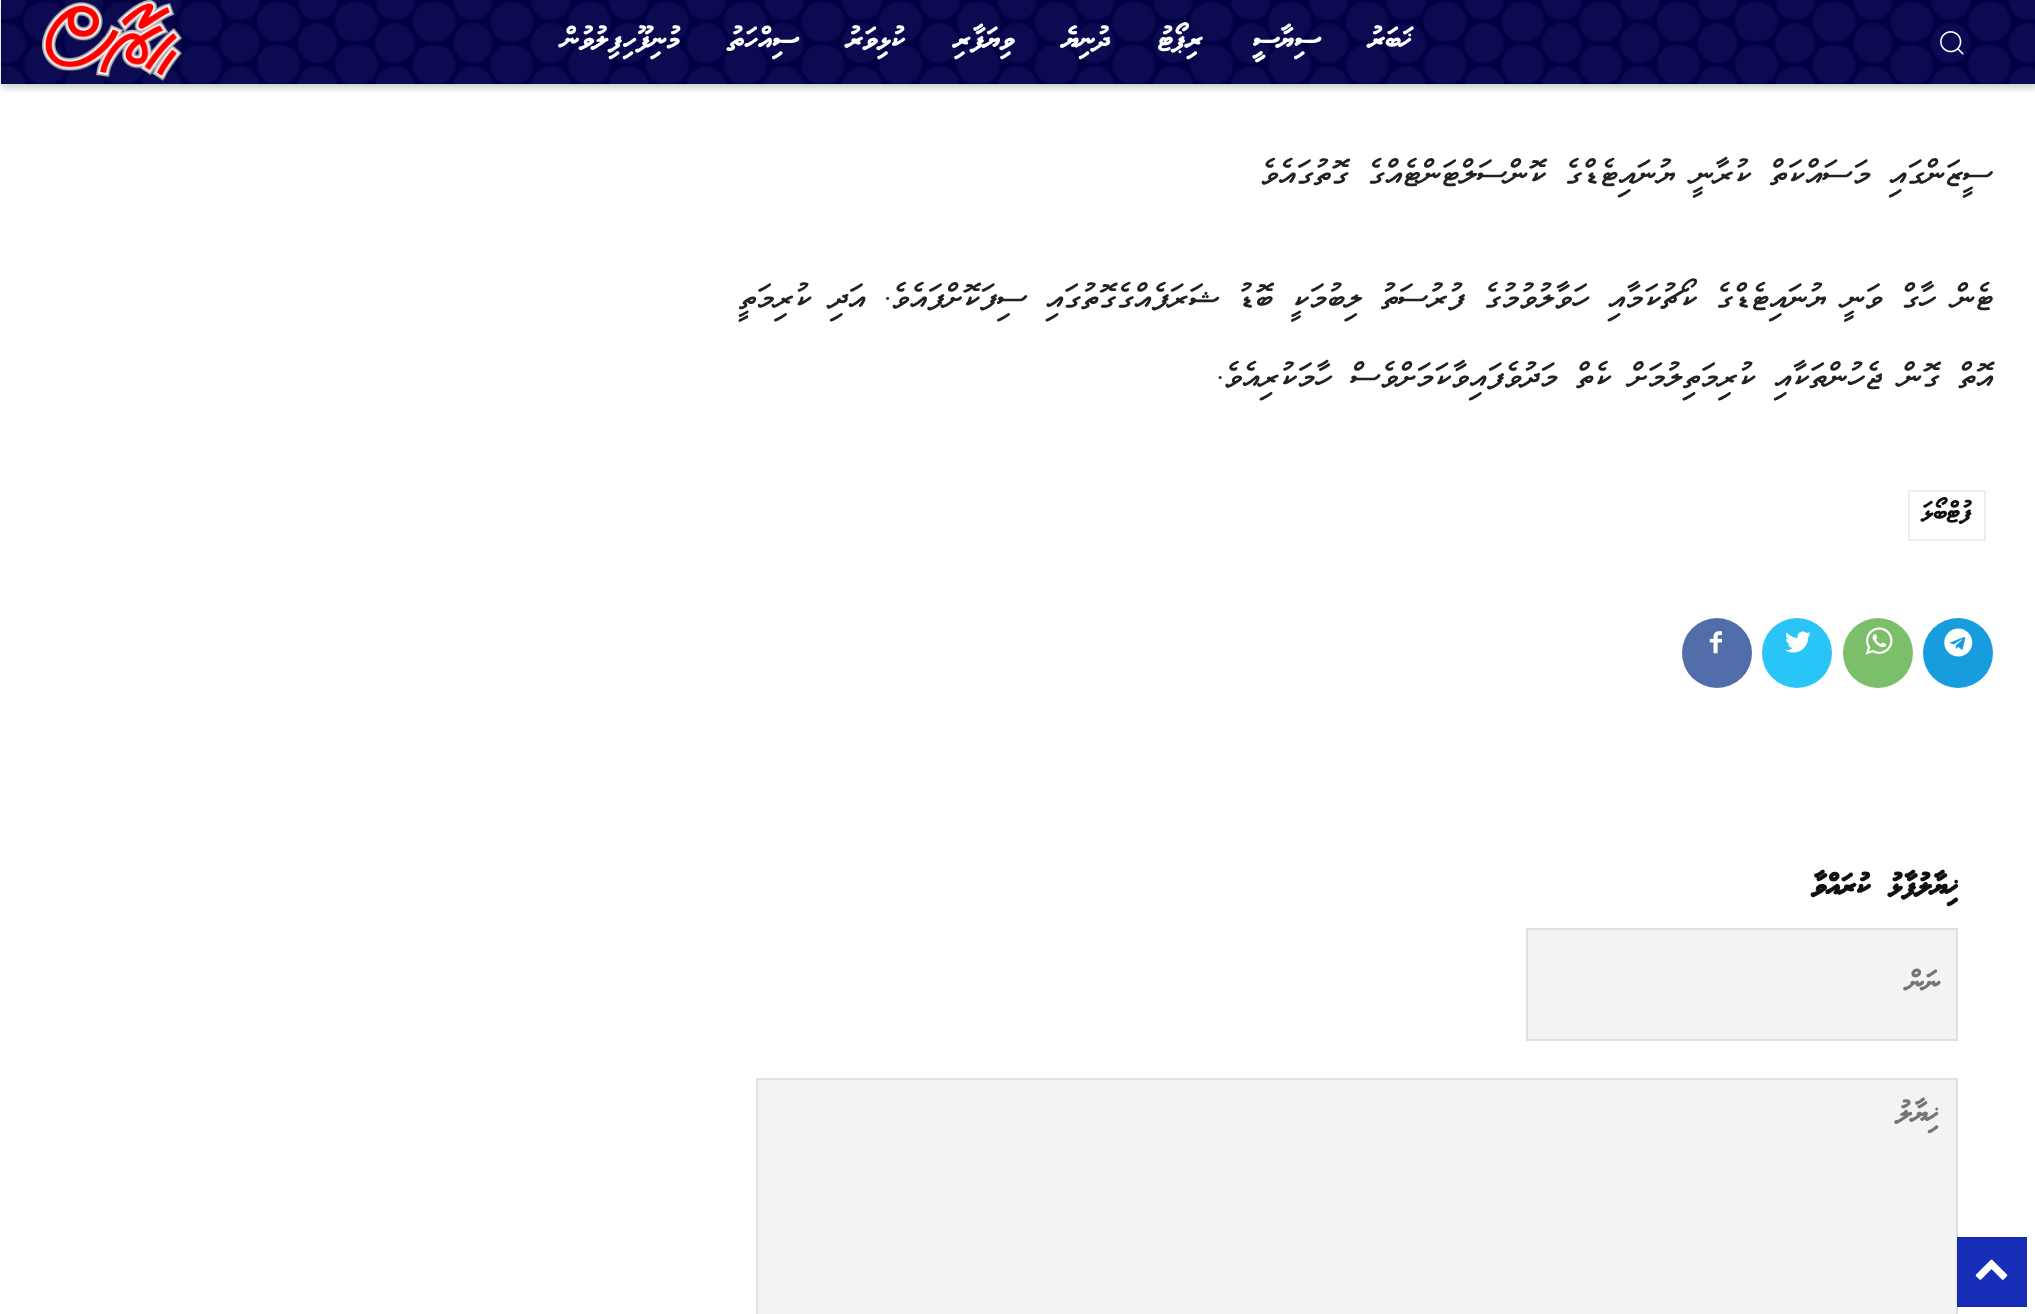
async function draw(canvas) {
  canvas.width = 2035
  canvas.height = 1314
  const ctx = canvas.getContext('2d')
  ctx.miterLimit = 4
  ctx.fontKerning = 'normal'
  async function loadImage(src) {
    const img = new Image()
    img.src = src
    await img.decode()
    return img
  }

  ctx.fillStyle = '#fff'
  ctx.fillRect(0, 0, 2035, 1314)
  ctx.drawImage(await loadImage('image0.png'), 1, 0, 2034, 84)
  ctx.drawImage(await loadImage('image2.png'), 42, 0, 140, 81)
  ctx.save()
  ctx.beginPath()
  ctx.moveTo(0, 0)
  ctx.lineTo(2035, 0)
  ctx.lineTo(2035, 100)
  ctx.lineTo(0, 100)
  ctx.closePath()
  ctx.moveTo(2, 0)
  ctx.lineTo(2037, 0)
  ctx.lineTo(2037, 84)
  ctx.lineTo(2, 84)
  ctx.closePath()
  ctx.clip('evenodd')
  ctx.fillStyle = '#00000033'
  ctx.filter = 'blur(3.5px)'
  ctx.beginPath()
  ctx.rect(2, 4, 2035, 84)
  ctx.fill()
  ctx.filter = 'none'
  ctx.restore()
  ctx.drawImage(await loadImage('image1.png'), 1940, 31, 24, 24)
  ctx.direction = 'rtl'
  ctx.font = '31.5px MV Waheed'
  ctx.fillText('ޚަބަރު', 1412, 47)
  ctx.fillText('ސިޔާސީ', 1320, 47)
  ctx.fillText('ރިޕޯޓު', 1203, 47)
  ctx.fillText('ދުނިޔެ', 1110, 47)
  ctx.fillText('ވިޔަފާރި', 1014, 47)
  ctx.fillText('ކުޅިވަރު', 905, 47)
  ctx.fillText('ސިއްހަތު', 798, 47)
  ctx.fillText('މުނިފޫހިފިލުވުން', 680, 47)
  ctx.font = '31.5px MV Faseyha'
  ctx.fillStyle = '#222'
  ctx.fillText('ސީޒަންގައި މަސައްކަތް ކުރާނީ ޔުނައިޓެޑްގެ ކޮންސަލްޓަންޓެއްގެ ގޮތުގައެވެ', 1993, 182)
  ctx.fillText('ޓެން ހާގް ވަނީ ޔުނައިޓެޑްގެ ކޯޗުކަމާއި ހަވާލުވުމުގެ ފުރުސަތު ލިބުމަކީ ބޮޑު ޝަރަފެއްގެގޮތުގައި ސިފަކޮށްފައެވެ. އަދި ކުރިމަތީ', 1993, 306)
  ctx.fillText('އޮތް ގޮން ޖެހުންތަކާއި ކުރިމަތިލުމަށް ކެތް މަދުވެފައިވާކަމަށްވެސް ހާމަކުރިއެވެ.', 1993, 385)
  ctx.strokeStyle = '#ededed'
  ctx.lineWidth = 2
  ctx.strokeRect(1909, 491, 76, 49)
  ctx.font = '28px MV Waheed'
  ctx.fillStyle = '#111'
  ctx.fillText('ފުޓްބޯޅަ', 1972, 519)
  ctx.fillStyle = '#179cde'
  ctx.beginPath()
  ctx.arc(1958, 653, 35, 0, 2 * Math.PI)
  ctx.fill()
  ctx.drawImage(await loadImage('image3.png'), 1944, 628, 29, 29)
  ctx.fillStyle = '#7bbf6a'
  ctx.beginPath()
  ctx.arc(1878, 653, 35, 0, 2 * Math.PI)
  ctx.fill()
  ctx.drawImage(await loadImage('image4.png'), 1865, 627, 28, 28)
  ctx.fillStyle = '#29c5f6'
  ctx.beginPath()
  ctx.arc(1797, 653, 35, 0, 2 * Math.PI)
  ctx.fill()
  ctx.drawImage(await loadImage('image5.png'), 1785, 631, 26, 22)
  ctx.fillStyle = '#516eab'
  ctx.beginPath()
  ctx.arc(1717, 653, 35, 0, 2 * Math.PI)
  ctx.fill()
  ctx.drawImage(await loadImage('image6.png'), 1709, 631, 13, 23)
  ctx.font = 'bold 31.5px MV Waheed'
  ctx.fillStyle = '#111'
  ctx.fillText('ޚިޔާލުފާޅު ކުރައްވާ', 1958, 894)
  ctx.fillStyle = '#f3f3f3'
  ctx.beginPath()
  ctx.rect(1527, 929, 430, 111)
  ctx.fill()
  ctx.strokeStyle = '#e1e1e1'
  ctx.stroke()
  ctx.font = '31.5px MV Waheed'
  ctx.fillStyle = '#757575'
  ctx.fillText('ނަން', 1941, 990)
  ctx.fillStyle = '#f3f3f3'
  ctx.beginPath()
  ctx.rect(757, 1079, 1200, 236)
  ctx.fill()
  ctx.stroke()
  ctx.fillStyle = '#757575'
  ctx.fillText('ޚިޔާލު', 1939, 1121)
  ctx.fillStyle = '#162eb7'
  ctx.fillRect(1957, 1237, 70, 70)
  ctx.drawImage(await loadImage('image7.png'), 1975, 1259, 33, 21)
}

draw(document.querySelector('canvas'))
